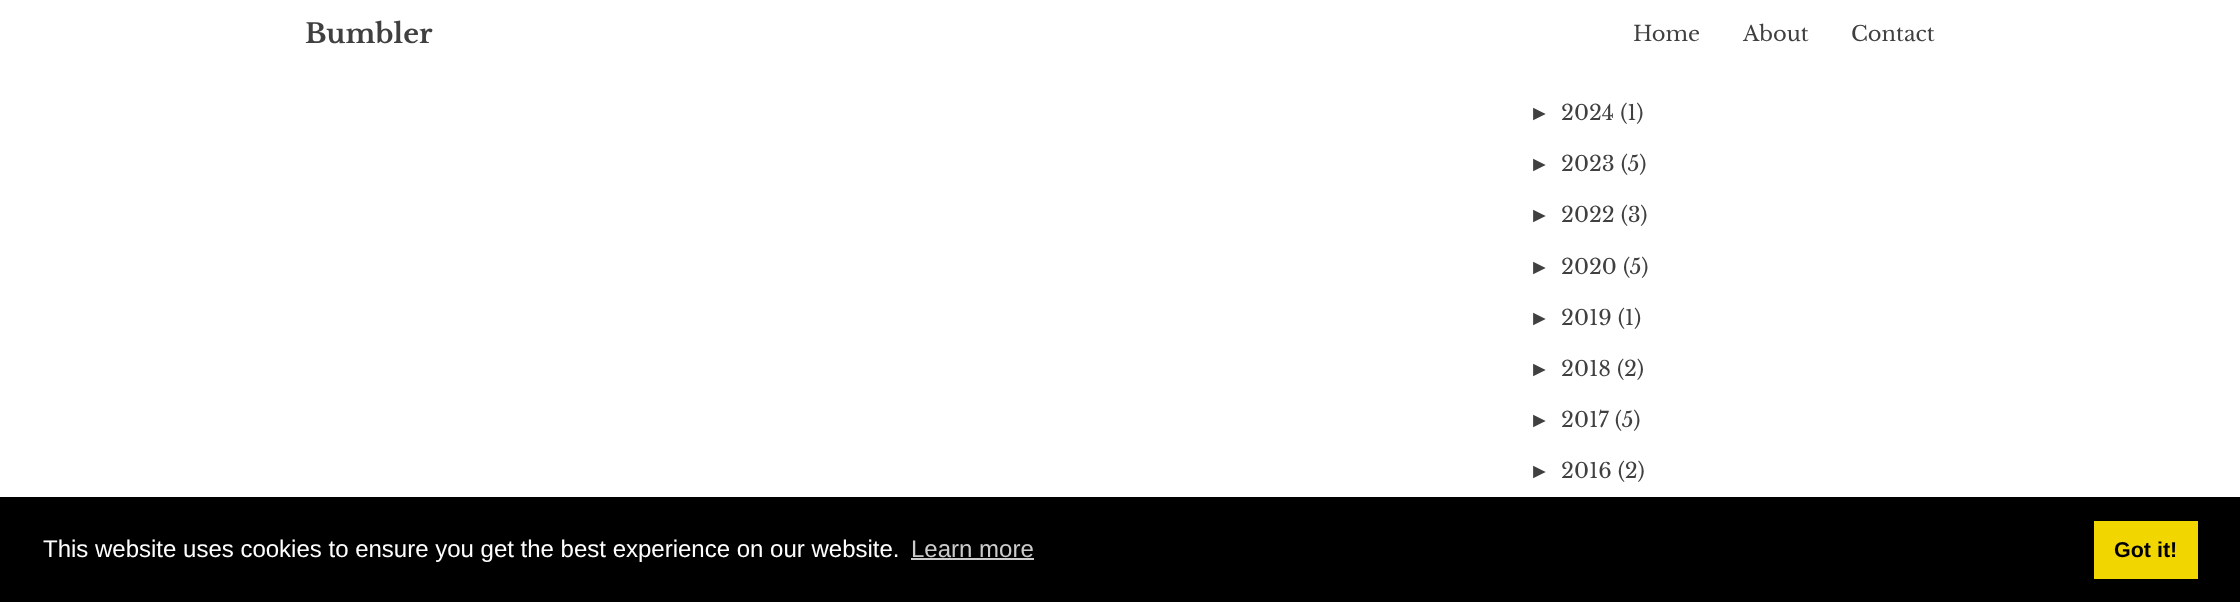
async function draw(canvas) {
  canvas.width = 2240
  canvas.height = 602
  const ctx = canvas.getContext('2d')
  ctx.miterLimit = 4
  ctx.fontKerning = 'normal'

  ctx.fillStyle = '#fff'
  ctx.fillRect(0, 0, 2240, 602)
  ctx.font = 'bold 27px Libre Baskerville'
  ctx.fillStyle = '#404040'
  ctx.fillText('Bumbler', 305, 43)
  ctx.font = '21px Libre Baskerville'
  ctx.fillText('Home', 1633, 41)
  ctx.fillText('About', 1743, 41)
  ctx.fillText('Contact', 1851, 41)
  ctx.font = '21px Liberation Sans'
  ctx.fillText('►', 1529, 120)
  ctx.font = '21px Libre Baskerville'
  ctx.fillText('2024 (1)', 1561, 120)
  ctx.font = '21px Liberation Sans'
  ctx.fillText('►', 1529, 171)
  ctx.font = '21px Libre Baskerville'
  ctx.fillText('2023 (5)', 1561, 171)
  ctx.font = '21px Liberation Sans'
  ctx.fillText('►', 1529, 222)
  ctx.font = '21px Libre Baskerville'
  ctx.fillText('2022 (3)', 1561, 222)
  ctx.font = '21px Liberation Sans'
  ctx.fillText('►', 1529, 274)
  ctx.font = '21px Libre Baskerville'
  ctx.fillText('2020 (5)', 1561, 274)
  ctx.font = '21px Liberation Sans'
  ctx.fillText('►', 1529, 325)
  ctx.font = '21px Libre Baskerville'
  ctx.fillText('2019 (1)', 1561, 325)
  ctx.font = '21px Liberation Sans'
  ctx.fillText('►', 1529, 376)
  ctx.font = '21px Libre Baskerville'
  ctx.fillText('2018 (2)', 1561, 376)
  ctx.font = '21px Liberation Sans'
  ctx.fillText('►', 1529, 427)
  ctx.font = '21px Libre Baskerville'
  ctx.fillText('2017 (5)', 1561, 427)
  ctx.font = '21px Liberation Sans'
  ctx.fillText('►', 1529, 478)
  ctx.font = '21px Libre Baskerville'
  ctx.fillText('2016 (2)', 1561, 478)
  ctx.fillStyle = '#000'
  ctx.fillRect(0, 497, 2240, 105)
  ctx.font = '24px Liberation Sans'
  ctx.fillStyle = '#fff'
  ctx.fillText('This website uses cookies to ensure you get the best experience on our website.', 43, 557)
  ctx.fillStyle = '#ccc'
  ctx.fillText('Learn more', 911, 557)
  ctx.fillRect(911, 558, 123, 2)
  ctx.fillStyle = '#f1d600'
  ctx.fillRect(2094, 521, 104, 58)
  ctx.font = 'bold 21.5px Liberation Sans'
  ctx.fillStyle = '#000'
  ctx.fillText('Got it!', 2114, 557)
}

draw(document.querySelector('canvas'))
